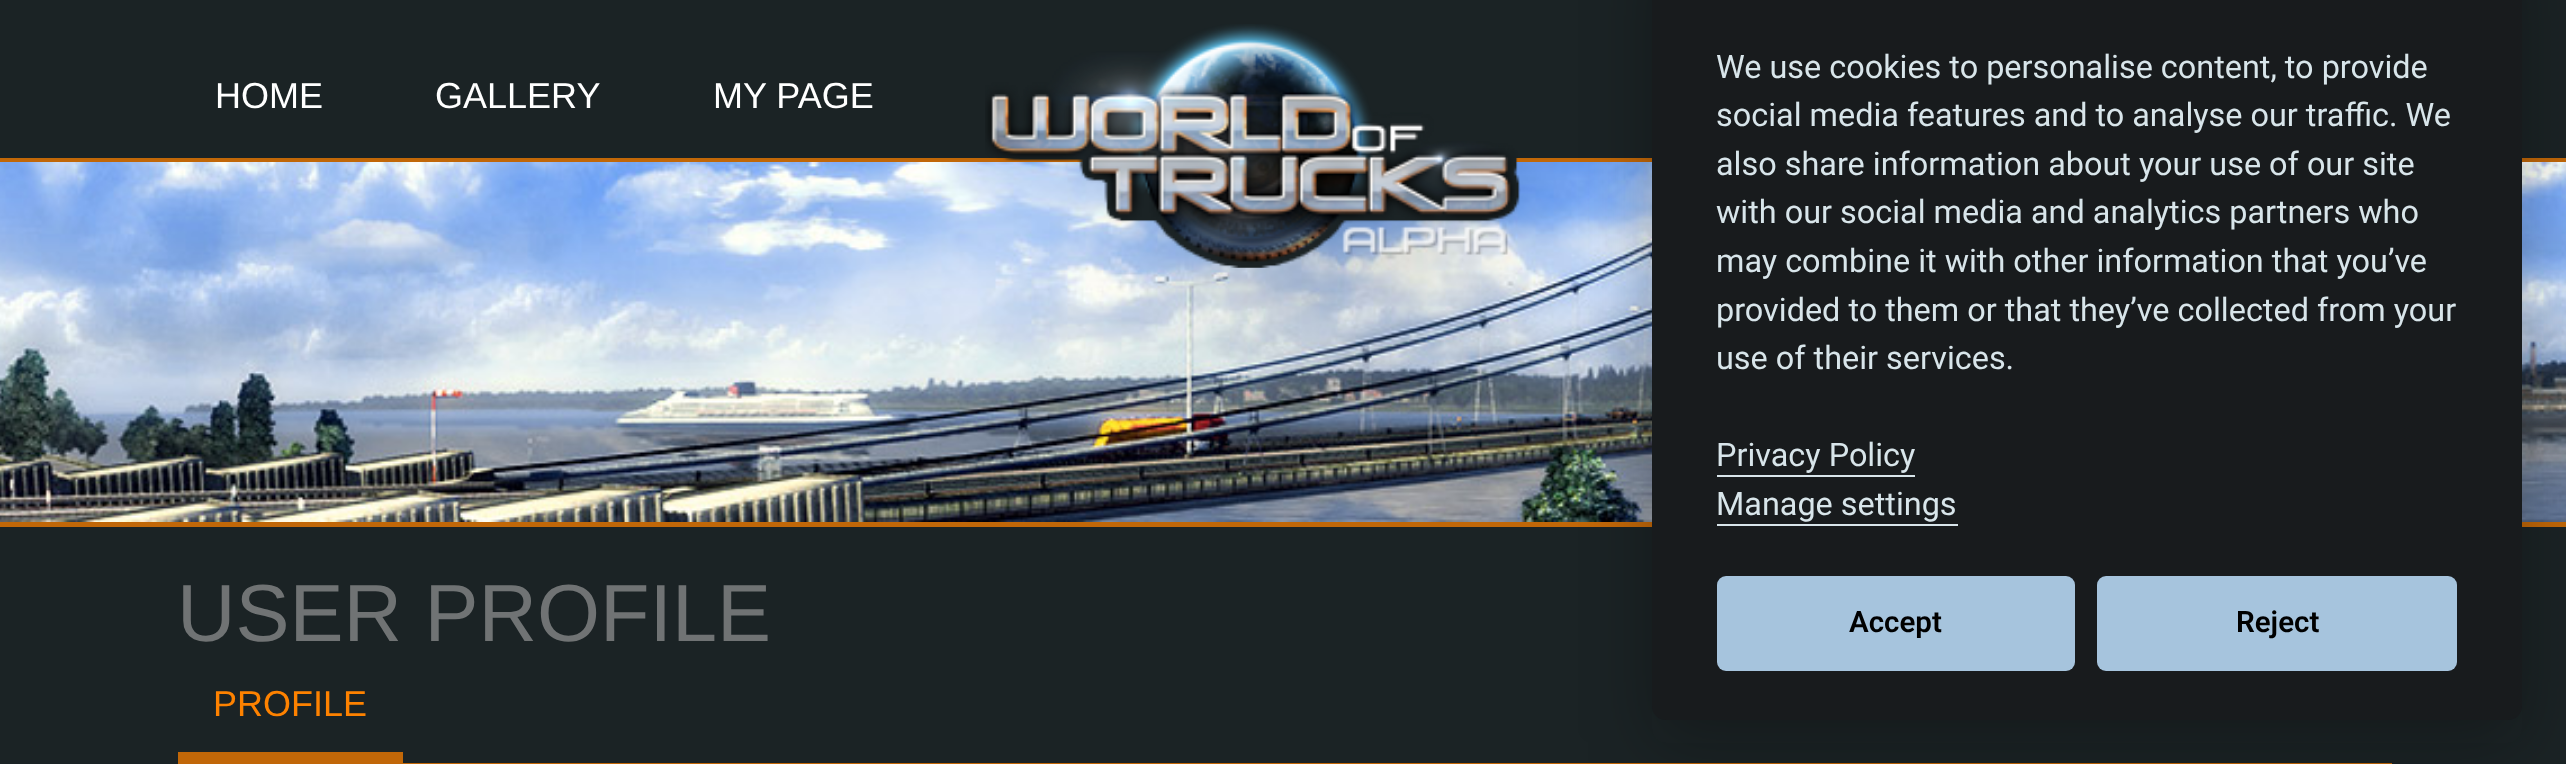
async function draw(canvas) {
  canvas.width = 2566
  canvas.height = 764
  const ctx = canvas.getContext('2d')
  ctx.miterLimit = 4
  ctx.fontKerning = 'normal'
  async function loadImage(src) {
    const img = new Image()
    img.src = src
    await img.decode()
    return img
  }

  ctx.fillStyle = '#1b2325'
  ctx.fillRect(0, 0, 2566, 764)
  ctx.fillStyle = '#c16708'
  ctx.fillRect(0, 158, 2566, 4)
  ctx.font = '36px Liberation Sans'
  ctx.fillStyle = '#fff'
  ctx.fillText('HOME', 215, 108)
  ctx.fillText('GALLERY', 435, 108)
  ctx.fillText('MY PAGE', 713, 108)
  ctx.drawImage(await loadImage('image1.png'), 0, 162, 2566, 360)
  ctx.drawImage(await loadImage('image0.png'), 985, 24, 536, 244)
  ctx.fillStyle = '#c16708'
  ctx.fillRect(0, 522, 2566, 5)
  ctx.fillRect(178, 763, 2214, 1)
  ctx.fillStyle = '#02020347'
  ctx.filter = 'blur(34px)'
  ctx.beginPath()
  ctx.roundRect(1652, -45, 870, 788, 14)
  ctx.fill()
  ctx.filter = 'none'
  ctx.fillStyle = '#181b1d'
  ctx.beginPath()
  ctx.roundRect(1652, -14, 870, 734, 14)
  ctx.fill()
  ctx.font = '32.4px Roboto'
  ctx.fillStyle = '#d8e5ea'
  ctx.fillText('We use cookies to personalise content, to provide', 1716, 78)
  ctx.fillText('social media features and to analyse our traffic. We', 1716, 126)
  ctx.fillText('also share information about your use of our site', 1716, 175)
  ctx.fillText('with our social media and analytics partners who', 1716, 223)
  ctx.fillText('may combine it with other information that you’ve', 1716, 272)
  ctx.fillText('provided to them or that they’ve collected from your', 1716, 321)
  ctx.fillText('use of their services.', 1716, 369)
  ctx.fillText('Privacy Policy', 1716, 466)
  ctx.fillRect(1717, 475, 198, 2)
  ctx.fillText('Manage settings', 1716, 515)
  ctx.fillRect(1717, 524, 241, 2)
  ctx.fillStyle = '#a6c4dd'
  ctx.beginPath()
  ctx.roundRect(1717, 576, 358, 95, 9)
  ctx.fill()
  ctx.font = '600 29.5px Roboto'
  ctx.fillStyle = '#000'
  ctx.fillText('Accept', 1849, 632)
  ctx.fillStyle = '#a6c4dd'
  ctx.beginPath()
  ctx.roundRect(2097, 576, 360, 95, 9)
  ctx.fill()
  ctx.fillStyle = '#000'
  ctx.fillText('Reject', 2236, 632)
  ctx.font = '81px Liberation Sans'
  ctx.fillStyle = '#707374'
  ctx.fillText('USER PROFILE', 177, 641)
  ctx.fillStyle = '#c16708'
  ctx.fillRect(178, 752, 225, 11)
  ctx.font = '36px Liberation Sans'
  ctx.fillStyle = '#fe8200'
  ctx.fillText('PROFILE', 213, 716)
}

draw(document.querySelector('canvas'))
